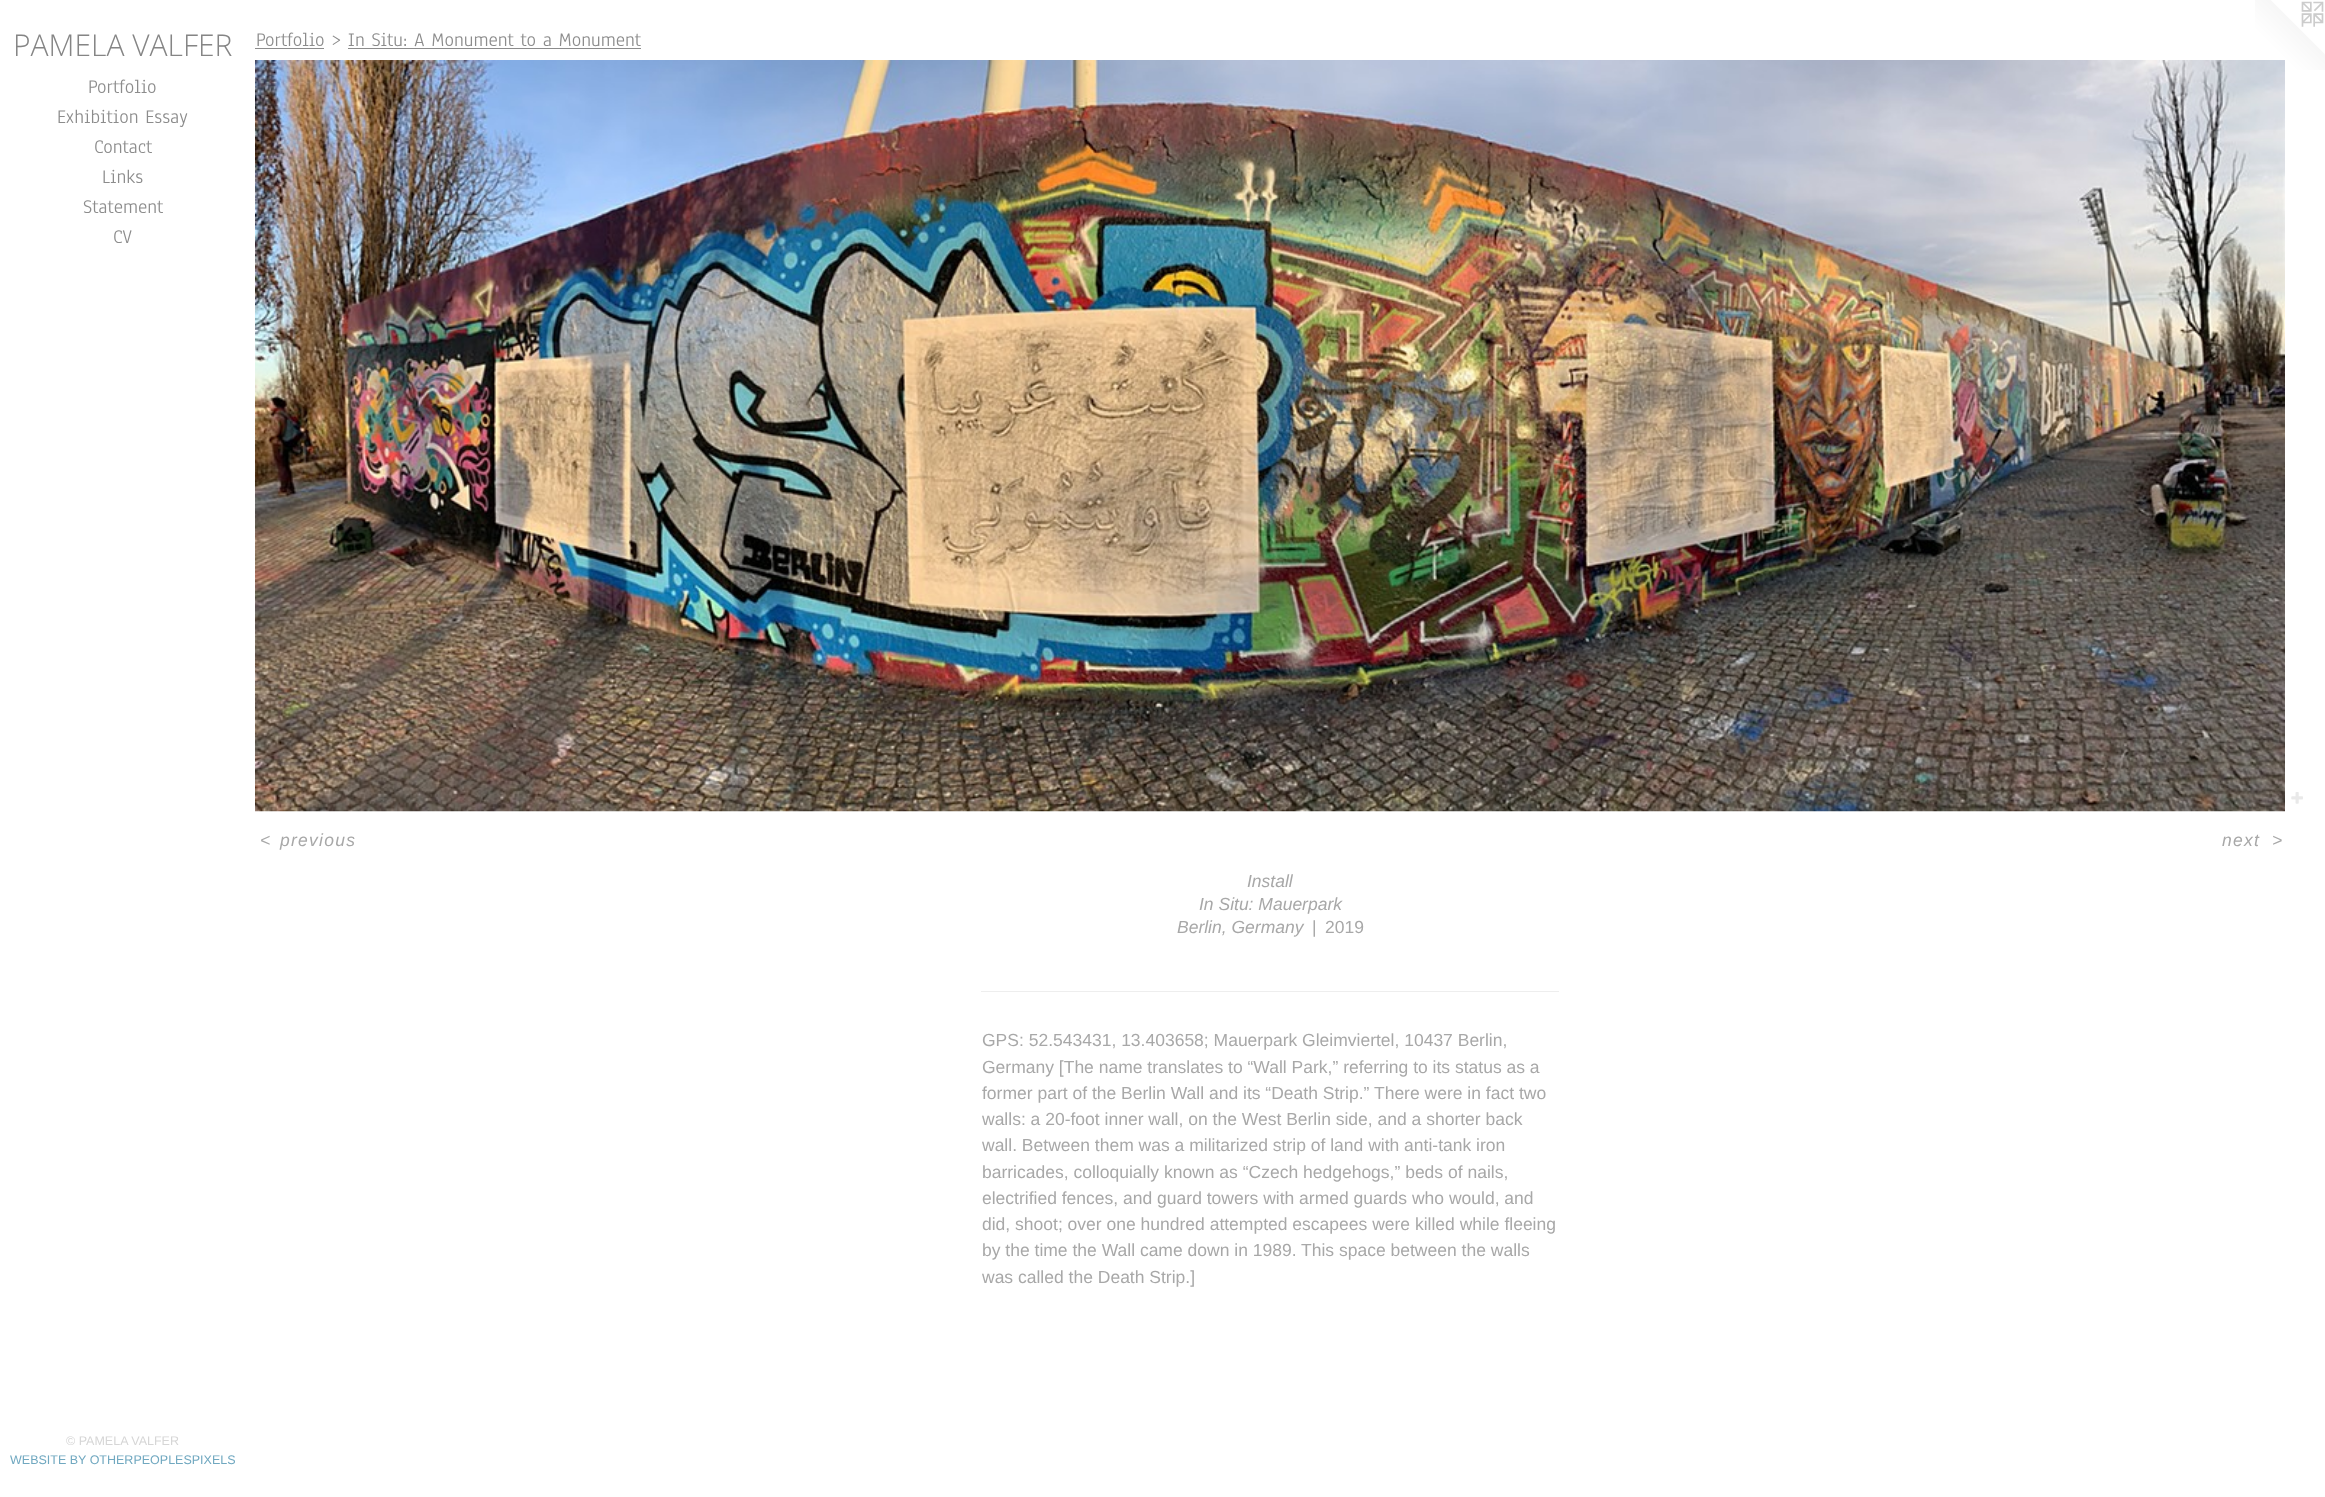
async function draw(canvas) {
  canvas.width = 2325
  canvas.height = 1497
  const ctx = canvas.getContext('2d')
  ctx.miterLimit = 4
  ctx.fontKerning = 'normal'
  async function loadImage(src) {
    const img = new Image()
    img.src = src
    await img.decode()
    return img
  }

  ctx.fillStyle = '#fff'
  ctx.fillRect(0, 0, 2325, 1497)
  ctx.font = '300 30px Open Sans'
  ctx.fillStyle = '#858585'
  ctx.fillText('PAMELA VALFER', 13, 56)
  ctx.font = '20px Anaheim'
  ctx.fillStyle = '#8c8c8c'
  ctx.fillText('Portfolio', 88, 93)
  ctx.fillText('Exhibition Essay', 57, 123)
  ctx.fillText('Contact', 94, 153)
  ctx.fillText('Links', 102, 183)
  ctx.fillText('Statement', 83, 213)
  ctx.fillText('CV', 113, 243)
  ctx.font = '12.5px Liberation Sans'
  ctx.fillStyle = '#d6d6d6'
  ctx.fillText('© PAMELA VALFER', 66, 1445)
  ctx.fillStyle = '#70a8c0'
  ctx.fillText('WEBSITE BY OTHERPEOPLESPIXELS', 10, 1464)
  ctx.font = '20px Anaheim'
  ctx.fillStyle = '#8c8c8c'
  ctx.fillText('Portfolio > In Situ: A Monument to a Monument', 256, 46)
  ctx.fillRect(255, 48, 69, 1)
  ctx.fillRect(348, 48, 293, 1)
  ctx.drawImage(await loadImage('image2.png'), 2255, 0, 70, 70)
  ctx.drawImage(await loadImage('image0.png'), 255, 60, 2030, 752)
  ctx.drawImage(await loadImage('image1.png'), 2291, 792, 12, 12)
  ctx.letterSpacing = '1.25px'
  ctx.font = 'italic 17.5px Liberation Sans'
  ctx.fillStyle = '#a8a8a8'
  ctx.fillText('<', 260, 846)
  ctx.fillText('previous', 280, 846)
  ctx.fillText('next', 2222, 846)
  ctx.fillText('>', 2272, 846)
  ctx.letterSpacing = '0px'
  ctx.fillText('Install', 1247, 887)
  ctx.fillText('In Situ: Mauerpark', 1199, 910)
  ctx.fillText('Berlin, Germany', 1177, 933)
  ctx.font = '17.5px Liberation Sans'
  ctx.fillText('|', 1312, 933)
  ctx.fillText('2019', 1325, 933)
  ctx.fillStyle = '#eee'
  ctx.fillRect(981, 991, 578, 1)
  ctx.fillStyle = '#a8a8a8'
  ctx.fillText('GPS: 52.543431, 13.403658; Mauerpark Gleimviertel, 10437 Berlin,', 982, 1046)
  ctx.fillText('Germany [The name translates to “Wall Park,” referring to its status as a', 982, 1073)
  ctx.fillText('former part of the Berlin Wall and its “Death Strip.” There were in fact two', 982, 1099)
  ctx.fillText('walls: a 20-foot inner wall, on the West Berlin side, and a shorter back', 982, 1125)
  ctx.fillText('wall. Between them was a militarized strip of land with anti-tank iron', 982, 1151)
  ctx.fillText('barricades, colloquially known as “Czech hedgehogs,” beds of nails,', 982, 1178)
  ctx.fillText('electrified fences, and guard towers with armed guards who would, and', 982, 1204)
  ctx.fillText('did, shoot; over one hundred attempted escapees were killed while fleeing', 982, 1230)
  ctx.fillText('by the time the Wall came down in 1989. This space between the walls', 982, 1256)
  ctx.fillText('was called the Death Strip.]', 982, 1283)
}

draw(document.querySelector('canvas'))
